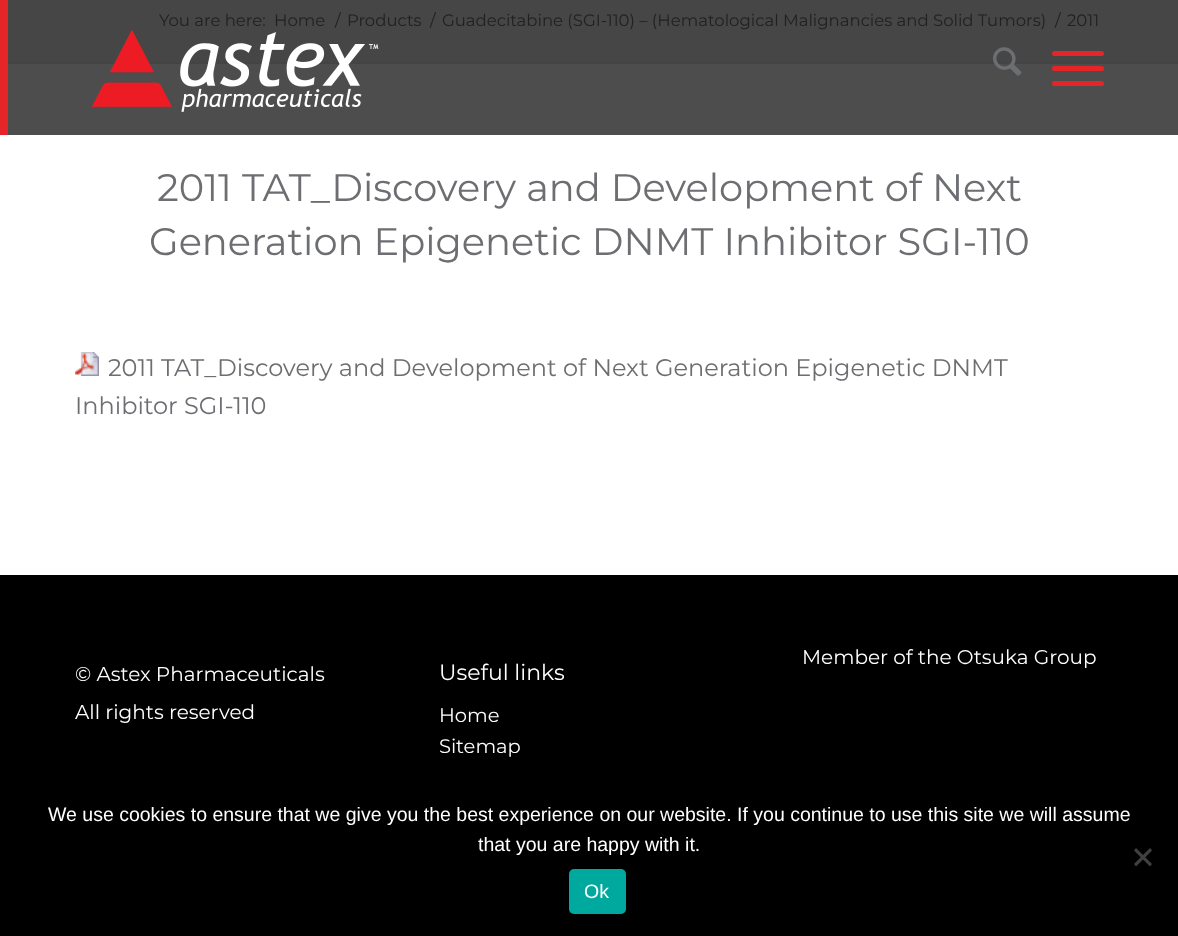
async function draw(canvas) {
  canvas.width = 1178
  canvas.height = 936
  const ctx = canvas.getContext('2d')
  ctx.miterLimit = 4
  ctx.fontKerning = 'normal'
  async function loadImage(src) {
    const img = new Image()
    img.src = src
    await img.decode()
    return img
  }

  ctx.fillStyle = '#fff'
  ctx.fillRect(0, 0, 1178, 936)
  ctx.fillStyle = '#4d4d4d'
  ctx.fillRect(8, 64, 1170, 71)
  ctx.fillStyle = '#444'
  ctx.fillRect(0, 62, 1178, 2)
  ctx.fillStyle = '#e52528'
  ctx.fillRect(0, 0, 8, 135)
  ctx.fillStyle = '#464646'
  ctx.fillRect(8, 0, 1170, 62)
  ctx.drawImage(await loadImage('image0.png'), 91, 29, 288, 83)
  ctx.drawImage(await loadImage('image1.png'), 993, 47, 29, 29)
  ctx.fillStyle = '#e52528'
  ctx.beginPath()
  ctx.roundRect(1052, 66, 52, 5, 2.5)
  ctx.fill()
  ctx.beginPath()
  ctx.roundRect(1052, 51, 52, 5, 2.5)
  ctx.fill()
  ctx.beginPath()
  ctx.roundRect(1052, 81, 52, 5, 2.5)
  ctx.fill()
  ctx.font = '100 16.5px Montserrat'
  ctx.fillStyle = '#212122'
  ctx.fillText('You are here:', 159, 26)
  ctx.fillText('Home', 274, 26)
  ctx.fillText('/', 335, 26)
  ctx.fillText('Products', 347, 26)
  ctx.fillText('/', 430, 26)
  ctx.fillText('Guadecitabine (SGI-110) – (Hematological Malignancies and Solid Tumors)', 442, 26)
  ctx.fillText('/', 1055, 26)
  ctx.fillText('2011', 1067, 26)
  ctx.font = '100 38.4px Montserrat'
  ctx.fillStyle = '#6d6e71'
  ctx.fillText('2011 TAT_Discovery and Development of Next', 157, 201)
  ctx.fillText('Generation Epigenetic DNMT Inhibitor SGI-110', 149, 255)
  ctx.drawImage(await loadImage('image2.png'), 75, 352, 24, 24)
  ctx.font = '100 24px Montserrat'
  ctx.fillText('2011 TAT_Discovery and Development of Next Generation Epigenetic DNMT', 108, 376)
  ctx.fillText('Inhibitor SGI-110', 75, 414)
  ctx.fillStyle = '#000'
  ctx.fillRect(0, 575, 1178, 361)
  ctx.font = '100 20px Montserrat'
  ctx.fillStyle = '#fff'
  ctx.fillText('Member of the Otsuka Group', 802, 664)
  ctx.fillText('© Astex Pharmaceuticals', 75, 681)
  ctx.fillText('All rights reserved', 75, 719)
  ctx.font = '100 22px Montserrat'
  ctx.fillText('Useful links', 439, 680)
  ctx.font = '100 19.5px Montserrat'
  ctx.fillText('Home', 439, 722)
  ctx.fillText('Sitemap', 439, 753)
  ctx.font = '19.5px Liberation Sans'
  ctx.fillText('We use cookies to ensure that we give you the best experience on our website. If you continue to use this site we will assume', 48, 821)
  ctx.fillText('that you are happy with it.', 478, 851)
  ctx.fillStyle = '#404040'
  ctx.beginPath()
  ctx.moveTo(1150, 848)
  ctx.lineTo(1152, 850.5)
  ctx.lineTo(1136, 866.5)
  ctx.lineTo(1134, 864)
  ctx.closePath()
  ctx.fill()
  ctx.beginPath()
  ctx.moveTo(1134, 850.5)
  ctx.lineTo(1136, 848)
  ctx.lineTo(1152, 864)
  ctx.lineTo(1150, 866.5)
  ctx.closePath()
  ctx.fill()
  ctx.fillStyle = '#00a99d'
  ctx.beginPath()
  ctx.roundRect(569, 869, 57, 45, 5)
  ctx.fill()
  ctx.fillStyle = '#fff'
  ctx.fillText('Ok', 584, 898)
}

draw(document.querySelector('canvas'))
